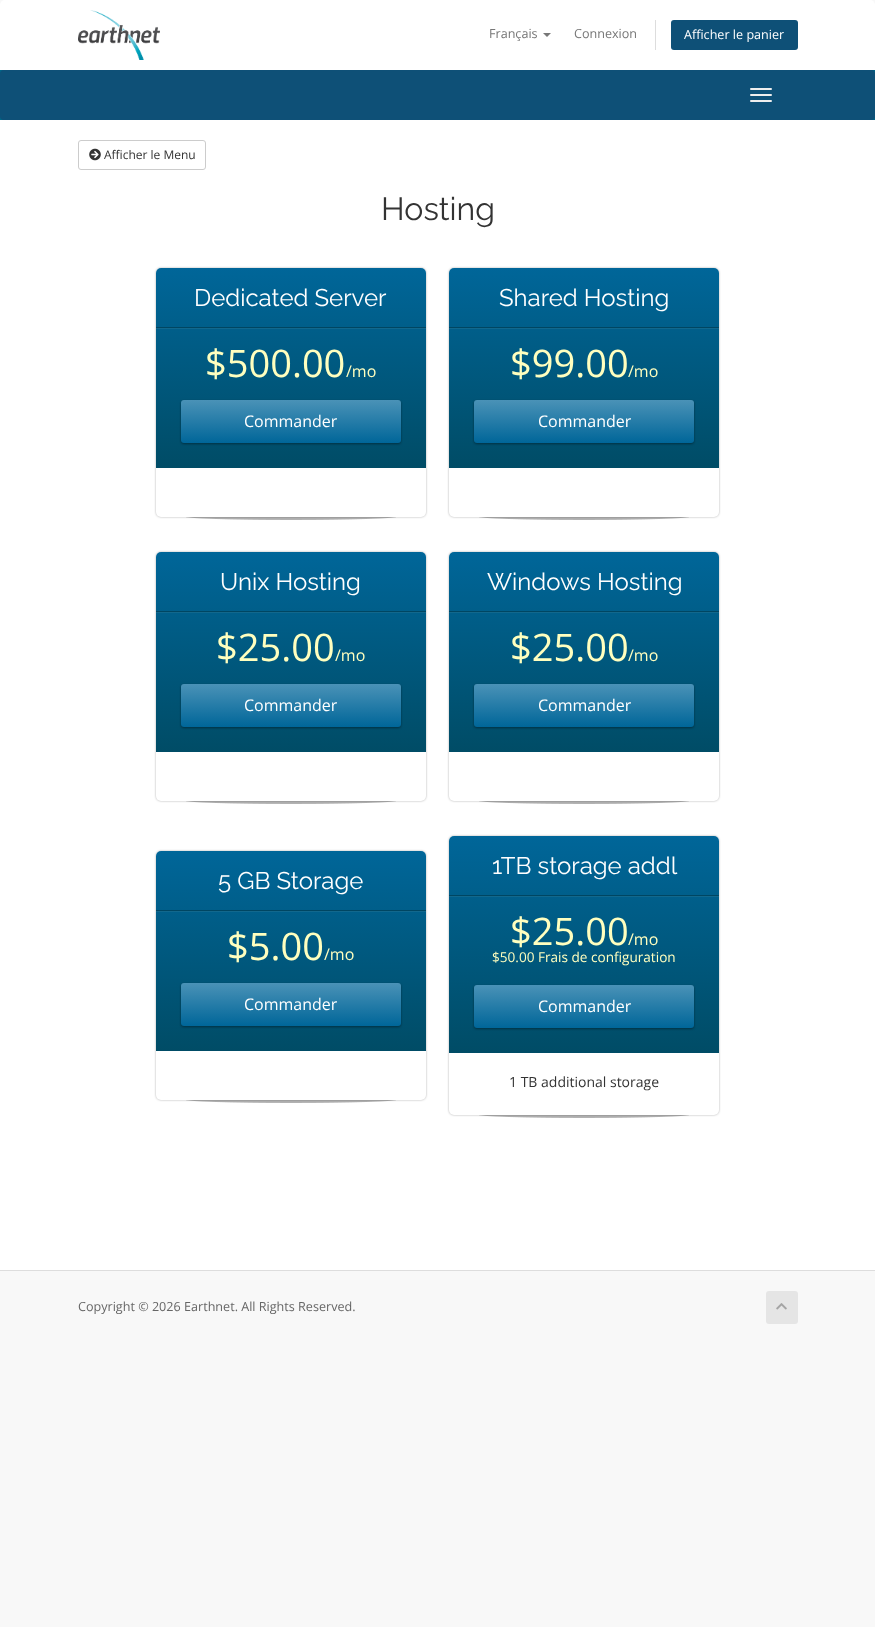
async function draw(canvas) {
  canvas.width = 875
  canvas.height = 1627
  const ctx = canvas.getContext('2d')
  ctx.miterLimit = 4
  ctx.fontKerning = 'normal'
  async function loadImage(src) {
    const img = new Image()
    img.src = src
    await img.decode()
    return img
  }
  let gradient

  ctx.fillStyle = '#f8f8f8'
  ctx.fillRect(0, 0, 875, 1627)
  ctx.fillStyle = '#fff'
  ctx.beginPath()
  ctx.roundRect(0, 0, 875, 70, [5, 5, 0, 0])
  ctx.fill()
  ctx.drawImage(await loadImage('image0.png'), 78, 10, 82, 50)
  ctx.font = '12.6px Open Sans'
  ctx.fillStyle = '#777'
  ctx.fillText('Français', 489, 38)
  ctx.beginPath()
  ctx.moveTo(543, 33)
  ctx.lineTo(551, 33)
  ctx.lineTo(547, 37)
  ctx.closePath()
  ctx.fill()
  ctx.fillText('Connexion', 574, 38)
  ctx.fillStyle = '#ddd'
  ctx.fillRect(655, 20, 1, 30)
  ctx.fillStyle = '#0e5077'
  ctx.beginPath()
  ctx.roundRect(671, 20, 127, 30, 3)
  ctx.fill()
  ctx.fillStyle = '#fff'
  ctx.fillText('Afficher le panier', 684, 39)
  ctx.fillStyle = '#006687'
  ctx.fillRect(0, 70, 875, 50)
  ctx.fillStyle = '#0e5077'
  ctx.beginPath()
  ctx.roundRect(0, 70, 875, 50, 4)
  ctx.fill()
  ctx.fillStyle = '#eee'
  ctx.beginPath()
  ctx.roundRect(750, 88, 22, 2, 1)
  ctx.fill()
  ctx.beginPath()
  ctx.roundRect(750, 94, 22, 2, 1)
  ctx.fill()
  ctx.beginPath()
  ctx.roundRect(750, 100, 22, 2, 1)
  ctx.fill()
  ctx.fillStyle = '#fff'
  ctx.fillRect(0, 120, 875, 1150)
  ctx.beginPath()
  ctx.roundRect(78.5, 140.5, 127, 29, 2.5)
  ctx.strokeStyle = '#ccc'
  ctx.stroke()
  ctx.drawImage(await loadImage('image1.png'), 89, 148, 12, 13)
  ctx.font = '12px Open Sans'
  ctx.fillStyle = '#333'
  ctx.fillText('Afficher le Menu', 104, 159)
  ctx.font = '32px Raleway'
  ctx.fillText('Hosting', 381, 220)
  ctx.drawImage(await loadImage('image2.png'), 186, 517, 210, 3)
  ctx.fillStyle = '#0000004d'
  ctx.filter = 'blur(1px)'
  ctx.beginPath()
  ctx.roundRect(156, 268, 270, 249, 5)
  ctx.fill()
  ctx.filter = 'none'
  ctx.fillStyle = '#fff'
  ctx.beginPath()
  ctx.roundRect(156, 268, 270, 249, 5)
  ctx.fill()
  gradient = ctx.createLinearGradient(291, 268, 291, 468)
  gradient.addColorStop(0, '#069')
  gradient.addColorStop(1, '#004c66')
  ctx.fillStyle = gradient
  ctx.beginPath()
  ctx.roundRect(156, 268, 270, 200, [5, 5, 0, 0])
  ctx.fill()
  ctx.fillStyle = '#004662'
  ctx.fillRect(156, 327, 270, 1)
  ctx.font = '24px Raleway'
  ctx.fillStyle = '#fff'
  ctx.fillText('Dedicated Server', 194, 306)
  ctx.fillStyle = '#12688d'
  ctx.fillRect(156, 328, 270, 1)
  ctx.font = '38px Open Sans'
  ctx.fillStyle = '#ffffbf'
  ctx.fillText('$500.00', 205, 377)
  ctx.font = '16px Open Sans'
  ctx.fillText('/mo', 346, 377)
  ctx.fillStyle = '#00000066'
  ctx.filter = 'blur(1px)'
  ctx.beginPath()
  ctx.roundRect(181, 401, 220, 43, 3)
  ctx.fill()
  ctx.filter = 'none'
  gradient = ctx.createLinearGradient(291, 400, 291, 443)
  gradient.addColorStop(0, '#4a92b7')
  gradient.addColorStop(1, '#069')
  ctx.fillStyle = gradient
  ctx.beginPath()
  ctx.roundRect(181, 400, 220, 43, 3)
  ctx.fill()
  ctx.fillStyle = '#fff'
  ctx.fillText('Commander', 244, 427)
  ctx.drawImage(await loadImage('image2.png'), 479, 517, 210, 3)
  ctx.fillStyle = '#0000004d'
  ctx.filter = 'blur(1px)'
  ctx.beginPath()
  ctx.roundRect(449, 268, 270, 249, 5)
  ctx.fill()
  ctx.filter = 'none'
  ctx.fillStyle = '#fff'
  ctx.beginPath()
  ctx.roundRect(449, 268, 270, 249, 5)
  ctx.fill()
  gradient = ctx.createLinearGradient(584, 268, 584, 468)
  gradient.addColorStop(0, '#069')
  gradient.addColorStop(1, '#004c66')
  ctx.fillStyle = gradient
  ctx.beginPath()
  ctx.roundRect(449, 268, 270, 200, [5, 5, 0, 0])
  ctx.fill()
  ctx.fillStyle = '#004662'
  ctx.fillRect(449, 327, 270, 1)
  ctx.font = '24px Raleway'
  ctx.fillStyle = '#fff'
  ctx.fillText('Shared Hosting', 499, 306)
  ctx.fillStyle = '#12688d'
  ctx.fillRect(449, 328, 270, 1)
  ctx.font = '38px Open Sans'
  ctx.fillStyle = '#ffffbf'
  ctx.fillText('$99.00', 510, 377)
  ctx.font = '16px Open Sans'
  ctx.fillText('/mo', 628, 377)
  ctx.fillStyle = '#00000066'
  ctx.filter = 'blur(1px)'
  ctx.beginPath()
  ctx.roundRect(474, 401, 220, 43, 3)
  ctx.fill()
  ctx.filter = 'none'
  gradient = ctx.createLinearGradient(584, 400, 584, 443)
  gradient.addColorStop(0, '#4a92b7')
  gradient.addColorStop(1, '#069')
  ctx.fillStyle = gradient
  ctx.beginPath()
  ctx.roundRect(474, 400, 220, 43, 3)
  ctx.fill()
  ctx.fillStyle = '#fff'
  ctx.fillText('Commander', 538, 427)
  ctx.drawImage(await loadImage('image2.png'), 186, 801, 210, 3)
  ctx.fillStyle = '#0000004d'
  ctx.filter = 'blur(1px)'
  ctx.beginPath()
  ctx.roundRect(156, 552, 270, 249, 5)
  ctx.fill()
  ctx.filter = 'none'
  ctx.fillStyle = '#fff'
  ctx.beginPath()
  ctx.roundRect(156, 552, 270, 249, 5)
  ctx.fill()
  gradient = ctx.createLinearGradient(291, 552, 291, 752)
  gradient.addColorStop(0, '#069')
  gradient.addColorStop(1, '#004c66')
  ctx.fillStyle = gradient
  ctx.beginPath()
  ctx.roundRect(156, 552, 270, 200, [5, 5, 0, 0])
  ctx.fill()
  ctx.fillStyle = '#004662'
  ctx.fillRect(156, 611, 270, 1)
  ctx.font = '24px Raleway'
  ctx.fillStyle = '#fff'
  ctx.fillText('Unix Hosting', 220, 590)
  ctx.fillStyle = '#12688d'
  ctx.fillRect(156, 612, 270, 1)
  ctx.font = '38px Open Sans'
  ctx.fillStyle = '#ffffbf'
  ctx.fillText('$25.00', 216, 661)
  ctx.font = '16px Open Sans'
  ctx.fillText('/mo', 335, 661)
  ctx.fillStyle = '#00000066'
  ctx.filter = 'blur(1px)'
  ctx.beginPath()
  ctx.roundRect(181, 685, 220, 43, 3)
  ctx.fill()
  ctx.filter = 'none'
  gradient = ctx.createLinearGradient(291, 684, 291, 727)
  gradient.addColorStop(0, '#4a92b7')
  gradient.addColorStop(1, '#069')
  ctx.fillStyle = gradient
  ctx.beginPath()
  ctx.roundRect(181, 684, 220, 43, 3)
  ctx.fill()
  ctx.fillStyle = '#fff'
  ctx.fillText('Commander', 244, 711)
  ctx.drawImage(await loadImage('image2.png'), 479, 801, 210, 3)
  ctx.fillStyle = '#0000004d'
  ctx.filter = 'blur(1px)'
  ctx.beginPath()
  ctx.roundRect(449, 552, 270, 249, 5)
  ctx.fill()
  ctx.filter = 'none'
  ctx.fillStyle = '#fff'
  ctx.beginPath()
  ctx.roundRect(449, 552, 270, 249, 5)
  ctx.fill()
  gradient = ctx.createLinearGradient(584, 552, 584, 752)
  gradient.addColorStop(0, '#069')
  gradient.addColorStop(1, '#004c66')
  ctx.fillStyle = gradient
  ctx.beginPath()
  ctx.roundRect(449, 552, 270, 200, [5, 5, 0, 0])
  ctx.fill()
  ctx.fillStyle = '#004662'
  ctx.fillRect(449, 611, 270, 1)
  ctx.font = '24px Raleway'
  ctx.fillStyle = '#fff'
  ctx.fillText('Windows Hosting', 487, 590)
  ctx.fillStyle = '#12688d'
  ctx.fillRect(449, 612, 270, 1)
  ctx.font = '38px Open Sans'
  ctx.fillStyle = '#ffffbf'
  ctx.fillText('$25.00', 510, 661)
  ctx.font = '16px Open Sans'
  ctx.fillText('/mo', 628, 661)
  ctx.fillStyle = '#00000066'
  ctx.filter = 'blur(1px)'
  ctx.beginPath()
  ctx.roundRect(474, 685, 220, 43, 3)
  ctx.fill()
  ctx.filter = 'none'
  gradient = ctx.createLinearGradient(584, 684, 584, 727)
  gradient.addColorStop(0, '#4a92b7')
  gradient.addColorStop(1, '#069')
  ctx.fillStyle = gradient
  ctx.beginPath()
  ctx.roundRect(474, 684, 220, 43, 3)
  ctx.fill()
  ctx.fillStyle = '#fff'
  ctx.fillText('Commander', 538, 711)
  ctx.drawImage(await loadImage('image2.png'), 186, 1100, 210, 3)
  ctx.fillStyle = '#0000004d'
  ctx.filter = 'blur(1px)'
  ctx.beginPath()
  ctx.roundRect(156, 851, 270, 249, 5)
  ctx.fill()
  ctx.filter = 'none'
  ctx.fillStyle = '#fff'
  ctx.beginPath()
  ctx.roundRect(156, 851, 270, 249, 5)
  ctx.fill()
  gradient = ctx.createLinearGradient(291, 851, 291, 1051)
  gradient.addColorStop(0, '#069')
  gradient.addColorStop(1, '#004c66')
  ctx.fillStyle = gradient
  ctx.beginPath()
  ctx.roundRect(156, 851, 270, 200, [5, 5, 0, 0])
  ctx.fill()
  ctx.fillStyle = '#004662'
  ctx.fillRect(156, 910, 270, 1)
  ctx.font = '24px Raleway'
  ctx.fillStyle = '#fff'
  ctx.fillText('5 GB Storage', 218, 889)
  ctx.fillStyle = '#12688d'
  ctx.fillRect(156, 911, 270, 1)
  ctx.font = '38px Open Sans'
  ctx.fillStyle = '#ffffbf'
  ctx.fillText('$5.00', 227, 960)
  ctx.font = '16px Open Sans'
  ctx.fillText('/mo', 324, 960)
  ctx.fillStyle = '#00000066'
  ctx.filter = 'blur(1px)'
  ctx.beginPath()
  ctx.roundRect(181, 984, 220, 43, 3)
  ctx.fill()
  ctx.filter = 'none'
  gradient = ctx.createLinearGradient(291, 983, 291, 1026)
  gradient.addColorStop(0, '#4a92b7')
  gradient.addColorStop(1, '#069')
  ctx.fillStyle = gradient
  ctx.beginPath()
  ctx.roundRect(181, 983, 220, 43, 3)
  ctx.fill()
  ctx.fillStyle = '#fff'
  ctx.fillText('Commander', 244, 1010)
  ctx.drawImage(await loadImage('image2.png'), 479, 1115, 210, 3)
  ctx.fillStyle = '#0000004d'
  ctx.filter = 'blur(1px)'
  ctx.beginPath()
  ctx.roundRect(449, 836, 270, 279, 5)
  ctx.fill()
  ctx.filter = 'none'
  ctx.fillStyle = '#fff'
  ctx.beginPath()
  ctx.roundRect(449, 836, 270, 279, 5)
  ctx.fill()
  gradient = ctx.createLinearGradient(584, 836, 584, 1053)
  gradient.addColorStop(0, '#069')
  gradient.addColorStop(1, '#004c66')
  ctx.fillStyle = gradient
  ctx.beginPath()
  ctx.roundRect(449, 836, 270, 217, [5, 5, 0, 0])
  ctx.fill()
  ctx.fillStyle = '#004662'
  ctx.fillRect(449, 895, 270, 1)
  ctx.font = '24px Raleway'
  ctx.fillStyle = '#fff'
  ctx.fillText('1TB storage addl', 492, 874)
  ctx.fillStyle = '#12688d'
  ctx.fillRect(449, 896, 270, 1)
  ctx.font = '38px Open Sans'
  ctx.fillStyle = '#ffffbf'
  ctx.fillText('$25.00', 510, 945)
  ctx.font = '16px Open Sans'
  ctx.fillText('/mo', 628, 945)
  ctx.font = '13.6px Open Sans'
  ctx.fillText('$50.00 Frais de configuration', 492, 962)
  ctx.fillStyle = '#00000066'
  ctx.filter = 'blur(1px)'
  ctx.beginPath()
  ctx.roundRect(474, 986, 220, 43, 3)
  ctx.fill()
  ctx.filter = 'none'
  gradient = ctx.createLinearGradient(584, 985, 584, 1028)
  gradient.addColorStop(0, '#4a92b7')
  gradient.addColorStop(1, '#069')
  ctx.fillStyle = gradient
  ctx.beginPath()
  ctx.roundRect(474, 985, 220, 43, 3)
  ctx.fill()
  ctx.font = '16px Open Sans'
  ctx.fillStyle = '#fff'
  ctx.fillText('Commander', 538, 1012)
  ctx.font = '14px Open Sans'
  ctx.fillStyle = '#333'
  ctx.fillText('1 TB additional storage', 509, 1087)
  ctx.fillStyle = '#ddd'
  ctx.fillRect(0, 1270, 875, 1)
  ctx.font = '12.6px Open Sans'
  ctx.fillStyle = '#666'
  ctx.fillText('Copyright © 2026 Earthnet. All Rights Reserved.', 78, 1311)
  ctx.fillStyle = '#e5e5e5'
  ctx.beginPath()
  ctx.roundRect(766, 1291, 32, 33, 3)
  ctx.fill()
  ctx.drawImage(await loadImage('image3.png'), 776, 1303, 11, 7)
}

draw(document.querySelector('canvas'))
